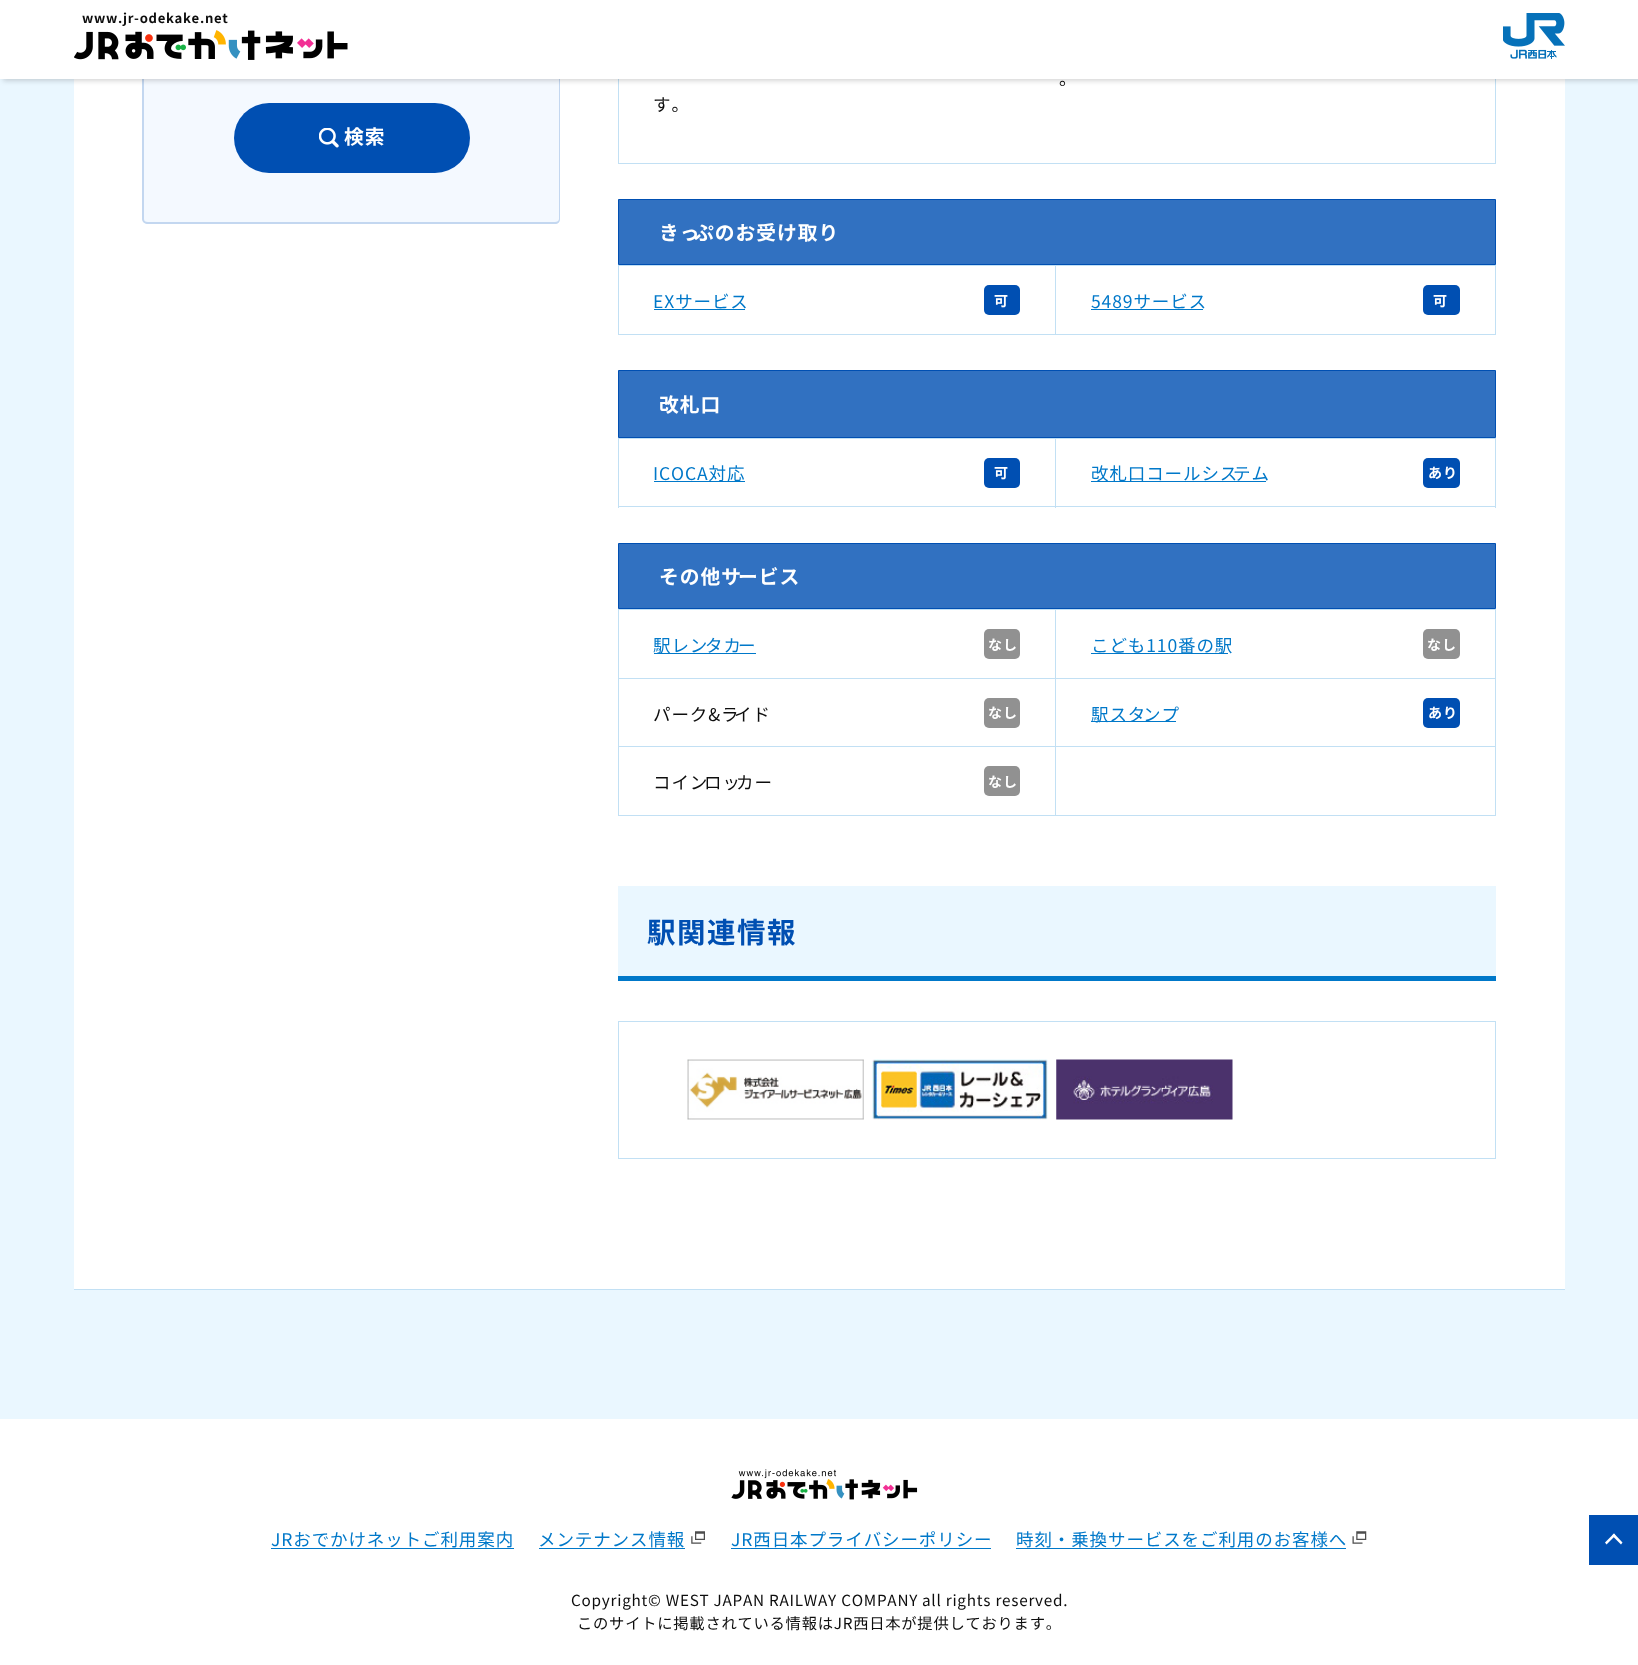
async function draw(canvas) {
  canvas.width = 1638
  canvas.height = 1665
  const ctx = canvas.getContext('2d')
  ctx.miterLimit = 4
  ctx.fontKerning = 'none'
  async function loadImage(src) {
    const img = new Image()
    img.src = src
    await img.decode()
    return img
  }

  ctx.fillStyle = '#fff'
  ctx.fillRect(0, 0, 1638, 1665)
  ctx.fillStyle = '#eaf7ff'
  ctx.fillRect(0, 79, 1638, 1340)
  ctx.fillStyle = '#fff'
  ctx.fillRect(74, 79, 1491, 1210)
  ctx.fillStyle = '#f4f9ff'
  ctx.beginPath()
  ctx.moveTo(143, -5)
  ctx.lineTo(560, -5)
  ctx.lineTo(560, 219)
  ctx.bezierCurveTo(560, 222, 558, 224, 555, 224)
  ctx.lineTo(148, 224)
  ctx.bezierCurveTo(145, 224, 143, 222, 143, 219)
  ctx.closePath()
  ctx.fill()
  ctx.fillStyle = '#c3d7f0'
  ctx.beginPath()
  ctx.moveTo(142, -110)
  ctx.lineTo(560, -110)
  ctx.lineTo(560, 219)
  ctx.bezierCurveTo(560, 222, 558, 224, 555, 224)
  ctx.lineTo(148, 224)
  ctx.bezierCurveTo(145, 224, 142, 222, 142, 219)
  ctx.closePath()
  ctx.moveTo(144, -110)
  ctx.lineTo(559, -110)
  ctx.lineTo(559, 219)
  ctx.bezierCurveTo(559, 221, 557, 222, 555, 222)
  ctx.lineTo(148, 222)
  ctx.bezierCurveTo(145, 222, 144, 221, 144, 219)
  ctx.closePath()
  ctx.fill('evenodd')
  ctx.strokeStyle = '#c2e0f4'
  ctx.strokeRect(618.5, -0.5, 877, 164)
  ctx.fillStyle = '#fff'
  ctx.fillRect(142, 0, 1354, 79)
  ctx.save()
  ctx.beginPath()
  ctx.moveTo(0, 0)
  ctx.lineTo(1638, 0)
  ctx.lineTo(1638, 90)
  ctx.lineTo(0, 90)
  ctx.closePath()
  ctx.moveTo(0, 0)
  ctx.lineTo(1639, 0)
  ctx.lineTo(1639, 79)
  ctx.lineTo(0, 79)
  ctx.closePath()
  ctx.clip('evenodd')
  ctx.fillStyle = '#00000029'
  ctx.filter = 'blur(2.5px)'
  ctx.beginPath()
  ctx.rect(3, 3, 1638, 78)
  ctx.fill()
  ctx.filter = 'none'
  ctx.restore()
  ctx.letterSpacing = '0.7px'
  ctx.font = 'bold 13.1px Noto Sans JP'
  ctx.fillStyle = '#0d0d0d'
  ctx.fillText('www.jr-odekake.net', 82, 23)
  ctx.drawImage(await loadImage('image0.png'), 74, 30, 274, 30)
  ctx.drawImage(await loadImage('image1.png'), 1503, 13, 62, 46)
  ctx.fillStyle = '#c2e0f4'
  ctx.fillRect(74, 1289, 1491, 1)
  ctx.fillStyle = '#004fb2'
  ctx.beginPath()
  ctx.roundRect(234, 103, 236, 70, 35)
  ctx.fill()
  ctx.drawImage(await loadImage('image2.png'), 319, 128, 20, 20)
  ctx.letterSpacing = '1px'
  ctx.font = 'bold 19.75px Noto Sans JP'
  ctx.fillStyle = '#fff'
  ctx.fillText('検索', 344, 144)
  ctx.letterSpacing = '0.9px'
  ctx.font = '17.5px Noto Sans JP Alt'
  ctx.fillStyle = '#0d0d0d'
  ctx.fillText('。', 1059, 85)
  ctx.font = '17.5px Noto Sans JP'
  ctx.fillText('す。', 653, 111)
  ctx.fillStyle = '#3171c1'
  ctx.beginPath()
  ctx.rect(618.5, 199.5, 877, 65)
  ctx.fill()
  ctx.strokeStyle = '#004fb2'
  ctx.stroke()
  ctx.letterSpacing = '1px'
  ctx.font = 'bold 19.75px Noto Sans JP'
  ctx.fillStyle = '#fff'
  ctx.fillText('きっ', 659, 240)
  ctx.fillText('ぷのお受け取り', 694, 240)
  ctx.fillStyle = '#c2e0f4'
  ctx.fillRect(618, 265, 878, 1)
  ctx.fillRect(1495, 265, 1, 70)
  ctx.fillRect(618, 265, 1, 70)
  ctx.fillRect(1055, 266, 1, 69)
  ctx.fillRect(619, 334, 876, 1)
  ctx.letterSpacing = '0.9px'
  ctx.font = '17.5px Noto Sans JP'
  ctx.fillStyle = '#0078c9'
  ctx.fillText('EXサービス', 653, 308)
  ctx.fillRect(654, 309, 91, 1)
  ctx.fillStyle = '#004fb2'
  ctx.beginPath()
  ctx.roundRect(984, 285, 36, 30, 5)
  ctx.fill()
  ctx.letterSpacing = '1px'
  ctx.font = 'bold 14px Noto Sans JP'
  ctx.fillStyle = '#fff'
  ctx.fillText('可', 994, 306)
  ctx.letterSpacing = '0.9px'
  ctx.font = '17.5px Noto Sans JP Alt'
  ctx.fillStyle = '#0078c9'
  ctx.fillText('5489サービス', 1091, 308)
  ctx.fillRect(1091, 309, 112, 1)
  ctx.fillStyle = '#004fb2'
  ctx.beginPath()
  ctx.roundRect(1423, 285, 37, 30, 5)
  ctx.fill()
  ctx.letterSpacing = '1px'
  ctx.font = 'bold 14px Noto Sans JP'
  ctx.fillStyle = '#fff'
  ctx.fillText('可', 1433, 306)
  ctx.fillStyle = '#3171c1'
  ctx.beginPath()
  ctx.rect(618.5, 370.5, 877, 67)
  ctx.fill()
  ctx.stroke()
  ctx.font = 'bold 19.75px Noto Sans JP'
  ctx.fillStyle = '#fff'
  ctx.fillText('改札口', 659, 412)
  ctx.fillStyle = '#c2e0f4'
  ctx.fillRect(618, 438, 878, 1)
  ctx.fillRect(1495, 438, 1, 70)
  ctx.fillRect(618, 438, 1, 70)
  ctx.fillRect(1055, 439, 1, 69)
  ctx.fillRect(619, 506, 876, 1)
  ctx.fillStyle = '#0078c9'
  ctx.fillRect(654, 481, 91, 1)
  ctx.letterSpacing = '0.9px'
  ctx.font = '17.5px Noto Sans JP'
  ctx.fillText('ICOCA対応', 653, 480)
  ctx.fillStyle = '#004fb2'
  ctx.beginPath()
  ctx.roundRect(984, 458, 36, 30, 5)
  ctx.fill()
  ctx.letterSpacing = '1px'
  ctx.font = 'bold 14px Noto Sans JP'
  ctx.fillStyle = '#fff'
  ctx.fillText('可', 994, 478)
  ctx.fillStyle = '#0078c9'
  ctx.fillRect(1091, 481, 175, 1)
  ctx.letterSpacing = '0.9px'
  ctx.font = '17.5px Noto Sans JP'
  ctx.fillText('改札口コールシス', 1091, 480)
  ctx.fillText('テム', 1233, 480)
  ctx.fillStyle = '#004fb2'
  ctx.beginPath()
  ctx.roundRect(1423, 458, 37, 30, 5)
  ctx.fill()
  ctx.letterSpacing = '1px'
  ctx.font = 'bold 14px Noto Sans JP'
  ctx.fillStyle = '#fff'
  ctx.fillText('あり', 1428, 478)
  ctx.fillStyle = '#3171c1'
  ctx.beginPath()
  ctx.rect(618.5, 543.5, 877, 65)
  ctx.fill()
  ctx.stroke()
  ctx.font = 'bold 19.75px Noto Sans JP'
  ctx.fillStyle = '#fff'
  ctx.fillText('その他サ', 659, 584)
  ctx.fillText('ービス', 738, 584)
  ctx.fillStyle = '#c2e0f4'
  ctx.fillRect(618, 609, 878, 1)
  ctx.fillRect(1495, 609, 1, 207)
  ctx.fillRect(618, 609, 1, 207)
  ctx.fillRect(1055, 610, 1, 206)
  ctx.fillRect(619, 678, 876, 1)
  ctx.fillStyle = '#0078c9'
  ctx.fillRect(654, 653, 102, 1)
  ctx.letterSpacing = '0.9px'
  ctx.font = '17.5px Noto Sans JP'
  ctx.fillText('駅レン', 653, 652)
  ctx.fillText('タカ', 705, 652)
  ctx.fillText('ー', 738, 652)
  ctx.fillStyle = '#919191'
  ctx.beginPath()
  ctx.roundRect(984, 629, 36, 30, 5)
  ctx.fill()
  ctx.letterSpacing = '1px'
  ctx.font = 'bold 14px Noto Sans JP'
  ctx.fillStyle = '#fff'
  ctx.fillText('なし', 988, 650)
  ctx.fillStyle = '#0078c9'
  ctx.fillRect(1091, 653, 137, 1)
  ctx.letterSpacing = '0.9px'
  ctx.font = '17.5px Noto Sans JP Alt'
  ctx.fillText('こども110番の駅', 1091, 652)
  ctx.fillStyle = '#919191'
  ctx.beginPath()
  ctx.roundRect(1423, 629, 37, 30, 5)
  ctx.fill()
  ctx.letterSpacing = '1px'
  ctx.font = 'bold 14px Noto Sans JP'
  ctx.fillStyle = '#fff'
  ctx.fillText('なし', 1427, 650)
  ctx.fillStyle = '#c2e0f4'
  ctx.fillRect(619, 746, 876, 1)
  ctx.letterSpacing = '0.9px'
  ctx.font = '17.5px Noto Sans JP'
  ctx.fillStyle = '#0d0d0d'
  ctx.fillText('パーク&ラ', 653, 721)
  ctx.fillText('イド', 734, 721)
  ctx.fillStyle = '#919191'
  ctx.beginPath()
  ctx.roundRect(984, 698, 36, 30, 5)
  ctx.fill()
  ctx.letterSpacing = '1px'
  ctx.font = 'bold 14px Noto Sans JP'
  ctx.fillStyle = '#fff'
  ctx.fillText('なし', 988, 718)
  ctx.fillStyle = '#0078c9'
  ctx.fillRect(1091, 721, 85, 1)
  ctx.letterSpacing = '0.9px'
  ctx.font = '17.5px Noto Sans JP'
  ctx.fillText('駅スタ', 1091, 721)
  ctx.fillText('ンプ', 1143, 721)
  ctx.fillStyle = '#004fb2'
  ctx.beginPath()
  ctx.roundRect(1423, 698, 37, 30, 5)
  ctx.fill()
  ctx.letterSpacing = '1px'
  ctx.font = 'bold 14px Noto Sans JP'
  ctx.fillStyle = '#fff'
  ctx.fillText('あり', 1428, 718)
  ctx.letterSpacing = '0.9px'
  ctx.font = '17.5px Noto Sans JP'
  ctx.fillStyle = '#0d0d0d'
  ctx.fillText('コイン', 653, 789)
  ctx.fillText('ロッ', 704, 789)
  ctx.fillText('カー', 736, 789)
  ctx.fillStyle = '#919191'
  ctx.beginPath()
  ctx.roundRect(984, 766, 36, 30, 5)
  ctx.fill()
  ctx.letterSpacing = '1px'
  ctx.font = 'bold 14px Noto Sans JP'
  ctx.fillStyle = '#fff'
  ctx.fillText('なし', 988, 787)
  ctx.fillStyle = '#c2e0f4'
  ctx.fillRect(619, 815, 876, 1)
  ctx.fillStyle = '#eaf7ff'
  ctx.fillRect(618, 886, 878, 90)
  ctx.fillStyle = '#0078c9'
  ctx.fillRect(618, 976, 878, 5)
  ctx.letterSpacing = '1.5px'
  ctx.font = 'bold 28.5px Noto Sans JP'
  ctx.fillStyle = '#004fb2'
  ctx.fillText('駅関連情報', 647, 943)
  ctx.strokeStyle = '#c2e0f4'
  ctx.strokeRect(618.5, 1021.5, 877, 137)
  ctx.drawImage(await loadImage('image3.png'), 687, 1059, 177, 61)
  ctx.drawImage(await loadImage('image4.png'), 872, 1059, 176, 61)
  ctx.drawImage(await loadImage('image5.png'), 1056, 1059, 177, 61)
  ctx.drawImage(await loadImage('image6.png'), 731, 1469, 187, 31)
  ctx.letterSpacing = '0.9px'
  ctx.font = '17.5px Noto Sans JP'
  ctx.fillStyle = '#0078c9'
  ctx.fillText('JRおでかけネットご利用案内', 271, 1546)
  ctx.fillRect(271, 1548, 243, 1)
  ctx.fillText('メンテナンス情報', 538, 1546)
  ctx.fillRect(539, 1548, 146, 1)
  ctx.drawImage(await loadImage('image7.png'), 691, 1531, 14, 13)
  ctx.fillText('JR西日本プライバシーポリシー', 731, 1546)
  ctx.fillRect(731, 1548, 260, 1)
  ctx.fillText('時刻・乗換サービスをご利用のお客様へ', 1016, 1546)
  ctx.fillRect(1016, 1548, 330, 1)
  ctx.drawImage(await loadImage('image8.png'), 1352, 1531, 15, 13)
  ctx.letterSpacing = '0.75px'
  ctx.font = '15.3px Noto Sans JP'
  ctx.fillStyle = '#0d0d0d'
  ctx.fillText('Copyright© WEST JAPAN RAILWAY COMPANY', 571, 1606)
  ctx.fillText('all rights reserved.', 922, 1606)
  ctx.fillText('このサイトに掲載されている情報はJR西日本が提供しております。', 577, 1629)
  ctx.fillStyle = '#004fb2'
  ctx.fillRect(1589, 1515, 49, 50)
  ctx.fillStyle = '#fff'
  ctx.beginPath()
  ctx.moveTo(1605, 1542.5)
  ctx.lineTo(1614, 1533.5)
  ctx.lineTo(1615.5, 1535.5)
  ctx.lineTo(1606.5, 1544.5)
  ctx.closePath()
  ctx.fill()
  ctx.beginPath()
  ctx.moveTo(1612, 1535.5)
  ctx.lineTo(1614, 1533.5)
  ctx.lineTo(1622.5, 1542.5)
  ctx.lineTo(1621, 1544.5)
  ctx.closePath()
  ctx.fill()
}

draw(document.querySelector('canvas'))
